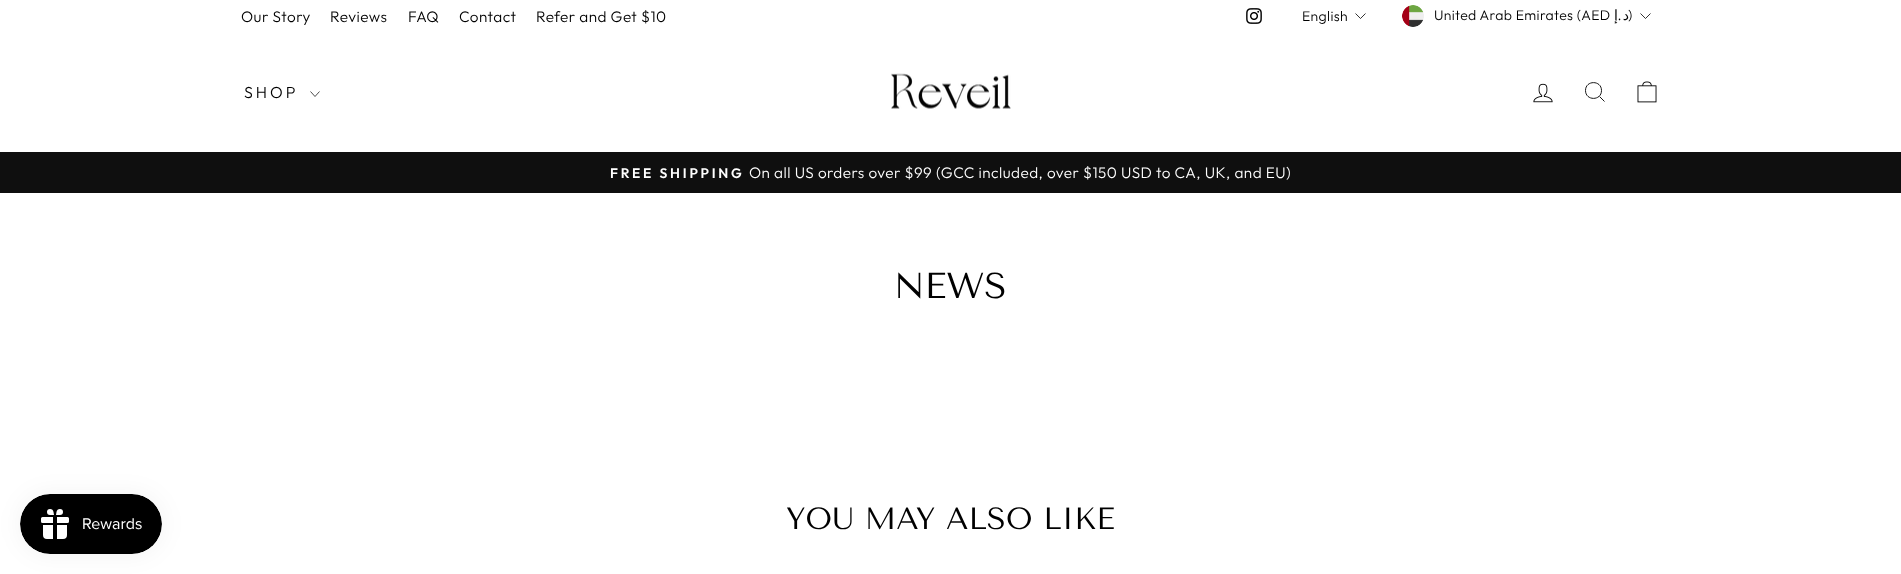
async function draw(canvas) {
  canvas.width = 1901
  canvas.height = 574
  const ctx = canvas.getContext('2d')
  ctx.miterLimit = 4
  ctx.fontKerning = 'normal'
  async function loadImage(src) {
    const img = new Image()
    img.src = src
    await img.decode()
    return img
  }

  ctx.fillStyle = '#fff'
  ctx.fillRect(0, 0, 1901, 574)
  ctx.fillStyle = '#0000000d'
  ctx.filter = 'blur(12.5px)'
  ctx.beginPath()
  ctx.roundRect(20, 494, 142, 60, 30)
  ctx.fill()
  ctx.filter = 'none'
  ctx.drawImage(await loadImage('image0.png'), 20, 494, 142, 60)
  ctx.letterSpacing = '0.45px'
  ctx.font = '300 15.3px Outfit'
  ctx.fillStyle = '#000'
  ctx.fillText('Our Story', 241, 22)
  ctx.fillText('Reviews', 330, 22)
  ctx.fillText('FAQ', 408, 22)
  ctx.fillText('Contact', 459, 22)
  ctx.fillText('Refer and Get $10', 536, 22)
  ctx.drawImage(await loadImage('image1.png'), 1246, 8, 16, 16)
  ctx.letterSpacing = '0.35px'
  ctx.font = '300 14px Outfit'
  ctx.fillText('English', 1302, 21)
  ctx.beginPath()
  ctx.moveTo(1355.5, 13.5)
  ctx.lineTo(1360.5, 18.5)
  ctx.lineTo(1365.5, 13.5)
  ctx.strokeStyle = '#000'
  ctx.lineWidth = 0.8
  ctx.stroke()
  ctx.drawImage(await loadImage('image2.png'), 1402, 5, 22, 22)
  ctx.fillText('United Arab Emirates (AED', 1434, 20)
  ctx.direction = 'rtl'
  ctx.font = '14px DejaVu Sans'
  ctx.fillText('إ', 1618, 20)
  ctx.font = '300 14px Outfit'
  ctx.fillText('.', 1622, 20)
  ctx.font = '14px DejaVu Sans'
  ctx.fillText('د', 1629, 20)
  ctx.direction = 'ltr'
  ctx.font = '300 14px Outfit'
  ctx.fillText(')', 1628, 20)
  ctx.beginPath()
  ctx.moveTo(1640.5, 13.5)
  ctx.lineTo(1645.5, 18.5)
  ctx.lineTo(1650.5, 13.5)
  ctx.stroke()
  ctx.letterSpacing = '3px'
  ctx.font = '300 16px Outfit'
  ctx.fillText('SHOP', 244, 98)
  ctx.beginPath()
  ctx.moveTo(310.5, 91.5)
  ctx.lineTo(315, 96.5)
  ctx.lineTo(319.5, 91.5)
  ctx.lineWidth = 0.7
  ctx.stroke()
  ctx.drawImage(await loadImage('image3.png'), 891, 73, 120, 36)
  ctx.drawImage(await loadImage('image4.png'), 1533, 83, 20, 20)
  ctx.beginPath()
  ctx.moveTo(1601.5, 90.5)
  ctx.bezierCurveTo(1601.5, 101, 1585.5, 101, 1585.5, 90.5)
  ctx.bezierCurveTo(1585.5, 80, 1601.5, 80, 1601.5, 90.5)
  ctx.closePath()
  ctx.moveTo(1604.5, 101.5)
  ctx.lineTo(1599.5, 96.5)
  ctx.lineWidth = 0.9
  ctx.stroke()
  ctx.drawImage(await loadImage('image5.png'), 1637, 81, 20, 22)
  ctx.fillStyle = '#0f0f0f'
  ctx.fillRect(0, 152, 1901, 41)
  ctx.letterSpacing = '2.75px'
  ctx.font = '600 13.75px Outfit'
  ctx.fillStyle = '#fff'
  ctx.fillText('FREE SHIPPING', 610, 178)
  ctx.letterSpacing = '0.45px'
  ctx.font = '300 15.3px Outfit'
  ctx.fillText('On all US orders over $99 (GCC included, over $150 USD to CA, UK, and EU)', 749, 178)
  ctx.letterSpacing = '0px'
  ctx.font = '36px Tenor Sans'
  ctx.fillStyle = '#000'
  ctx.fillText('NEWS', 894, 298)
  ctx.font = '30.6px Tenor Sans'
  ctx.fillText('YOU MAY ALSO LIKE', 786, 529)
}

draw(document.querySelector('canvas'))
